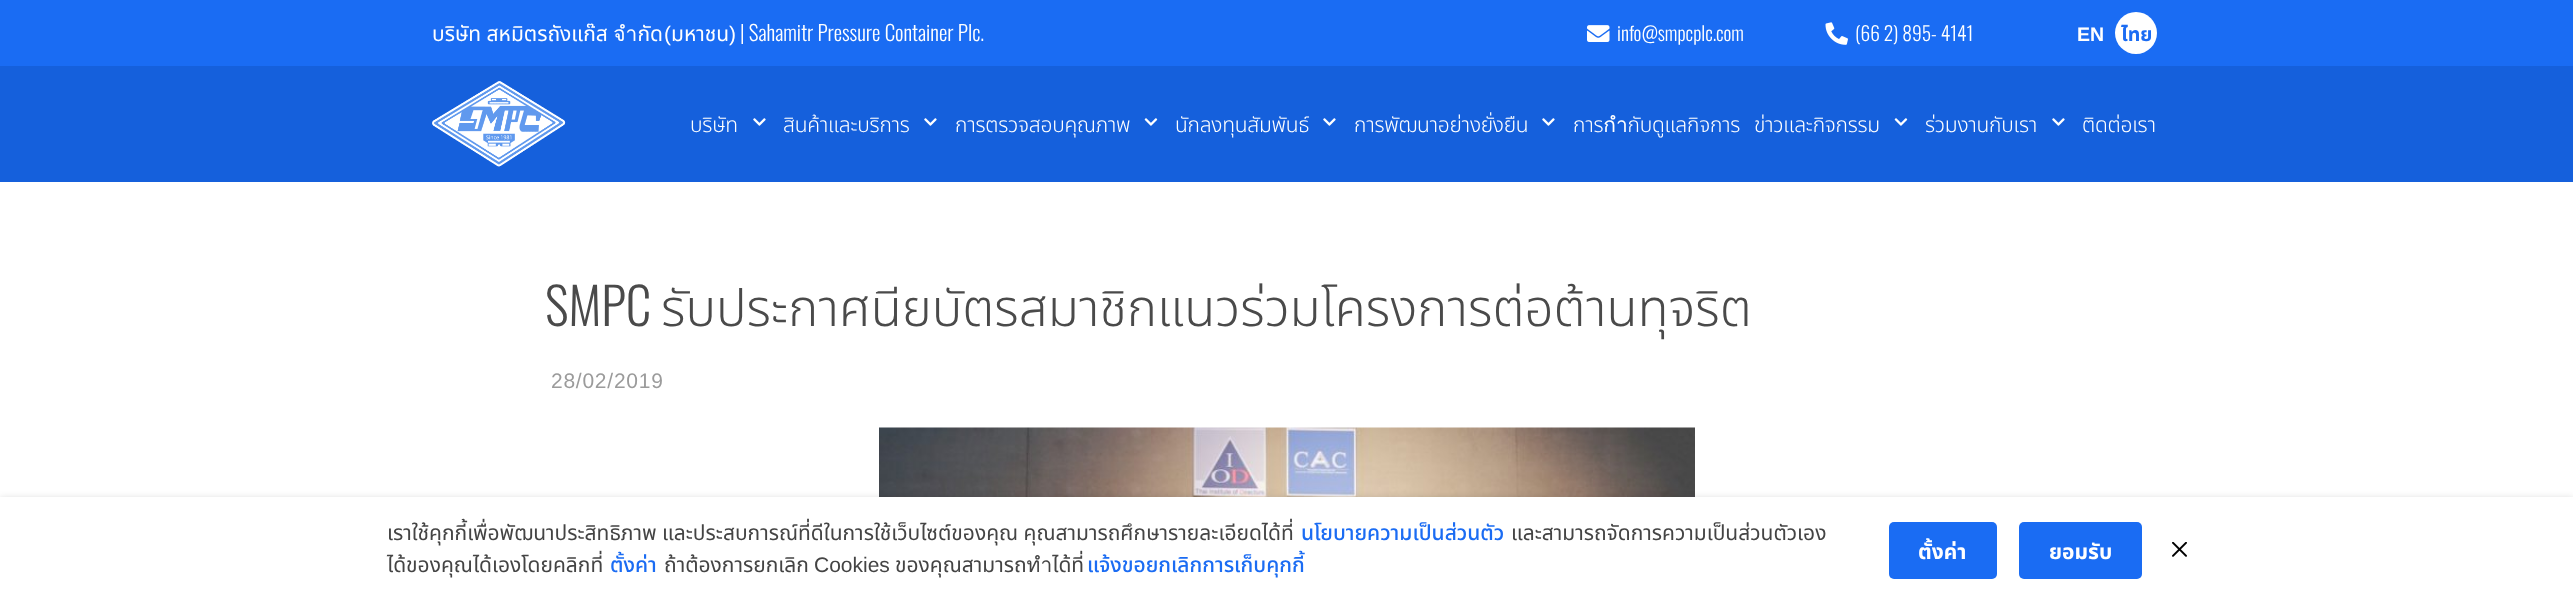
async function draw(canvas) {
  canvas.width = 2573
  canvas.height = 604
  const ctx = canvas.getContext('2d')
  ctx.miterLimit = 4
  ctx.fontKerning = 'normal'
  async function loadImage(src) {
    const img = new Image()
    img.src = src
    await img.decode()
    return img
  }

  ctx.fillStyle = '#fff'
  ctx.fillRect(0, 0, 2573, 604)
  ctx.fillStyle = '#1a6cf3'
  ctx.fillRect(0, 0, 2573, 66)
  ctx.font = '21px Noto Sans Thai'
  ctx.fillStyle = '#fff'
  ctx.fillText('บริษัท สหมิตรถังแก๊ส จำกัด', 432, 41)
  ctx.font = '21px Liberation Sans'
  ctx.fillText('(', 664, 41)
  ctx.font = '21px Noto Sans Thai'
  ctx.fillText('มหาชน', 671, 41)
  ctx.font = '21px Liberation Sans'
  ctx.fillText(')', 729, 41)
  ctx.font = '300 21px Oswald'
  ctx.fillText('| Sahamitr Pressure Container Plc.', 740, 41)
  ctx.drawImage(await loadImage('image0.png'), 1587, 25, 23, 17)
  ctx.font = '300 19.5px Oswald'
  ctx.fillText('info@smpcplc.com', 1617, 41)
  ctx.drawImage(await loadImage('image1.png'), 1825, 22, 23, 23)
  ctx.fillText('(66 2) 895- 4141', 1855, 41)
  ctx.font = 'bold 19.5px Liberation Sans'
  ctx.fillText('EN', 2077, 41)
  ctx.beginPath()
  ctx.arc(2136, 33, 21, 0, 2 * Math.PI)
  ctx.fill()
  ctx.font = 'bold 19.5px Noto Sans Thai'
  ctx.fillStyle = '#1b6cf3'
  ctx.fillText('ไทย', 2121, 41)
  ctx.fillStyle = '#1560dc'
  ctx.fillRect(0, 66, 2573, 116)
  ctx.drawImage(await loadImage('image2.png'), 432, 81, 134, 86)
  ctx.letterSpacing = '-0.25px'
  ctx.font = '300 21px Noto Sans Thai'
  ctx.fillStyle = '#fff'
  ctx.fillText('บริษัท', 690, 132)
  ctx.drawImage(await loadImage('image3.png'), 753, 118, 13, 8)
  ctx.fillText('สินค้าและบริการ', 783, 132)
  ctx.drawImage(await loadImage('image3.png'), 924, 118, 13, 8)
  ctx.fillText('การตรวจสอบคุณภาพ', 955, 132)
  ctx.drawImage(await loadImage('image4.png'), 1144, 118, 14, 8)
  ctx.fillText('นักลงทุนสัมพันธ์', 1175, 132)
  ctx.drawImage(await loadImage('image3.png'), 1323, 118, 13, 8)
  ctx.fillText('การพัฒนาอย่างยั่งยืน', 1354, 132)
  ctx.drawImage(await loadImage('image3.png'), 1542, 118, 13, 8)
  ctx.fillText('การกำกับดูแลกิจการ', 1573, 132)
  ctx.fillText('ข่าวและกิจกรรม', 1754, 132)
  ctx.drawImage(await loadImage('image4.png'), 1894, 118, 14, 8)
  ctx.fillText('ร่วมงานกับเรา', 1925, 132)
  ctx.drawImage(await loadImage('image3.png'), 2052, 118, 13, 8)
  ctx.fillText('ติดต่อเรา', 2082, 132)
  ctx.letterSpacing = '0px'
  ctx.font = '300 51px Oswald'
  ctx.fillStyle = '#4a4a4a'
  ctx.fillText('SMPC', 545, 326)
  ctx.font = '300 51px Noto Sans Thai'
  ctx.fillText('รับประกาศนียบัตรสมาชิกแนวร่วมโครงการต่อต้านทุจริต', 661, 326)
  ctx.letterSpacing = '0.75px'
  ctx.font = '21px Liberation Sans'
  ctx.fillStyle = '#9b9b9b'
  ctx.fillText('28/02/2019', 551, 388)
  ctx.drawImage(await loadImage('image5.png'), 879, 427, 816, 70)
  ctx.fillStyle = '#00000040'
  ctx.filter = 'blur(4px)'
  ctx.beginPath()
  ctx.rect(0, 500, 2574, 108)
  ctx.fill()
  ctx.filter = 'none'
  ctx.fillStyle = '#fff'
  ctx.fillRect(0, 497, 2573, 107)
  ctx.letterSpacing = '0px'
  ctx.font = '21px Noto Sans Thai'
  ctx.fillStyle = '#444'
  ctx.fillText('เราใช้คุกกี้เพื่อพัฒนาประสิทธิภาพ และประสบการณ์ที่ดีในการใช้เว็บไซต์ของคุณ คุณสามารถศึกษารายละเอียดได้ที่', 387, 540)
  ctx.font = '500 21px Noto Sans Thai'
  ctx.fillStyle = '#1b6cf3'
  ctx.fillText('นโยบายความเป็นส่วนตัว', 1301, 540)
  ctx.font = '21px Noto Sans Thai'
  ctx.fillStyle = '#444'
  ctx.fillText('และสามารถจัดการความเป็นส่วนตัวเอง', 1511, 540)
  ctx.fillText('ได้ของคุณได้เองโดยคลิกที่', 387, 572)
  ctx.font = '500 21px Noto Sans Thai'
  ctx.fillStyle = '#1b6cf3'
  ctx.fillText('ตั้งค่า', 610, 572)
  ctx.font = '21px Noto Sans Thai'
  ctx.fillStyle = '#444'
  ctx.fillText('ถ้าต้องการยกเลิก', 664, 572)
  ctx.font = '21px Liberation Sans'
  ctx.fillText('Cookies', 814, 572)
  ctx.font = '21px Noto Sans Thai'
  ctx.fillText('ของคุณสามารถทำได้ที่', 895, 572)
  ctx.font = '500 21px Noto Sans Thai'
  ctx.fillStyle = '#1b6cf3'
  ctx.fillText('แจ้งขอยกเลิกการเก็บคุกกี้', 1087, 572)
  ctx.fillStyle = '#1a6cf3'
  ctx.beginPath()
  ctx.roundRect(1889, 522, 108, 57, 5)
  ctx.fill()
  ctx.font = 'bold 21px Noto Sans Thai'
  ctx.fillStyle = '#fff'
  ctx.fillText('ตั้งค่า', 1918, 559)
  ctx.fillStyle = '#1a6cf3'
  ctx.beginPath()
  ctx.roundRect(2019, 522, 123, 57, 5)
  ctx.fill()
  ctx.fillStyle = '#fff'
  ctx.fillText('ยอมรับ', 2049, 559)
  ctx.drawImage(await loadImage('image6.png'), 2172, 542, 15, 15)
}

draw(document.querySelector('canvas'))
